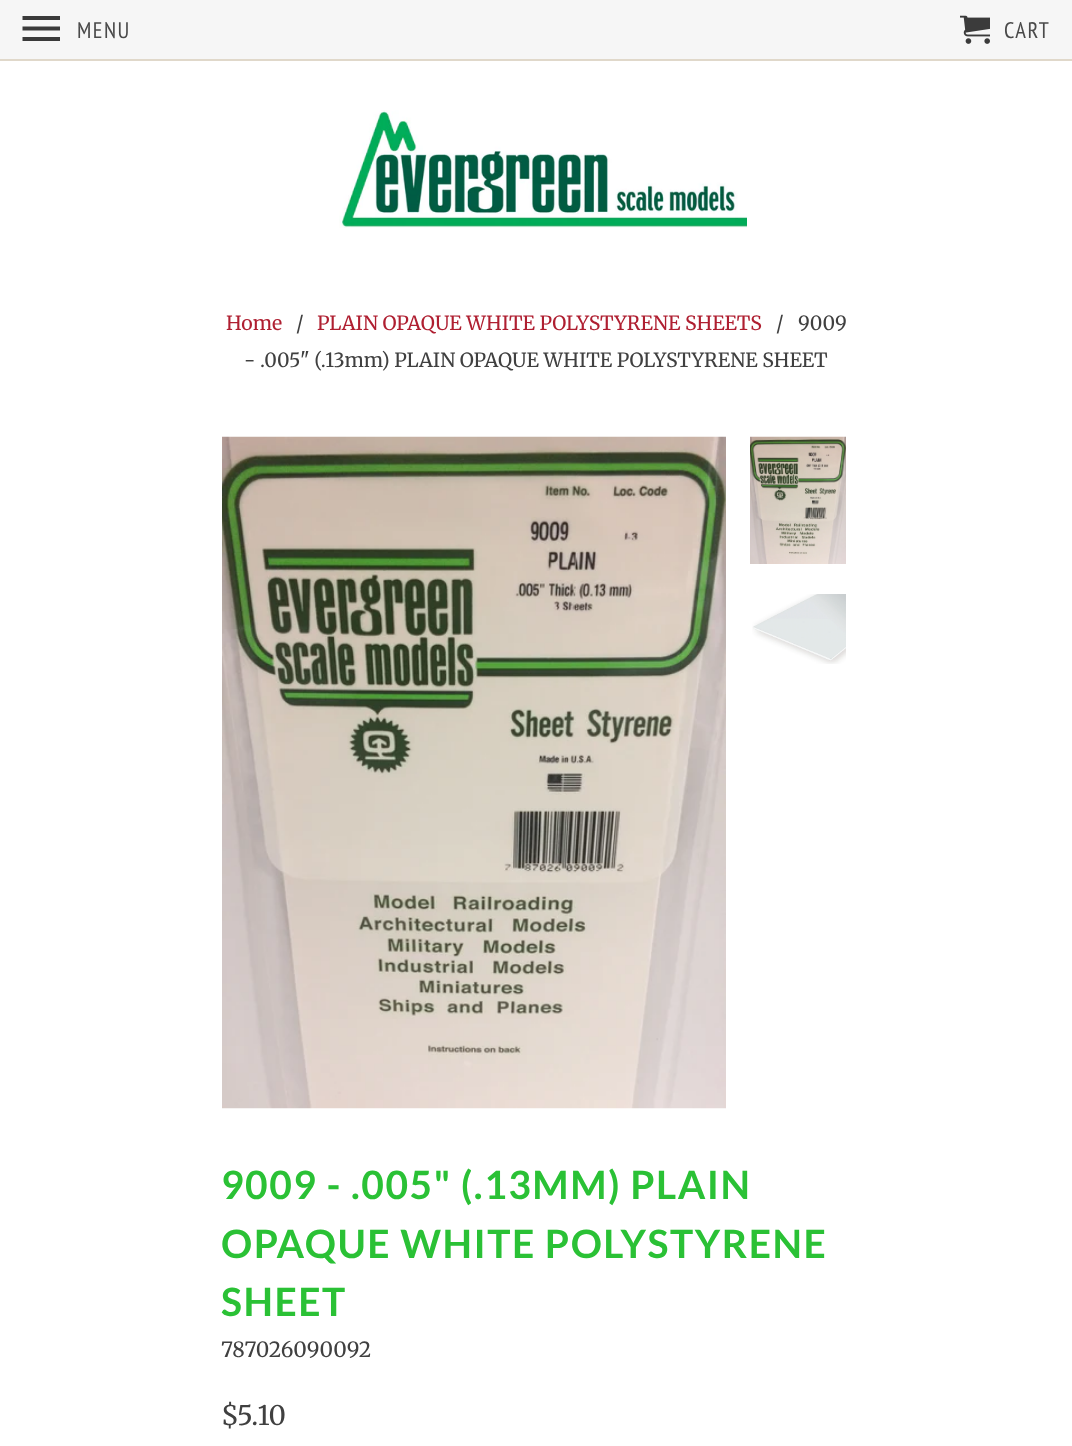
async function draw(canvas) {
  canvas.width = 1072
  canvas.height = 1446
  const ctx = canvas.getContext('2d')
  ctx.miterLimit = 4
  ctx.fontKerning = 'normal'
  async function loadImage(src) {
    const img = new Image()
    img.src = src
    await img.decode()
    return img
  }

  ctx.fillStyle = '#fff'
  ctx.fillRect(0, 0, 1072, 1446)
  ctx.fillStyle = '#f6f6f6'
  ctx.fillRect(0, 0, 1072, 59)
  ctx.fillStyle = '#e0d8ca'
  ctx.fillRect(0, 59, 1072, 2)
  ctx.fillStyle = '#3a3a3a'
  ctx.beginPath()
  ctx.moveTo(22.5, 41)
  ctx.lineTo(60, 41)
  ctx.lineTo(60, 37)
  ctx.lineTo(22.5, 37)
  ctx.closePath()
  ctx.moveTo(22.5, 30.5)
  ctx.lineTo(60, 30.5)
  ctx.lineTo(60, 26.5)
  ctx.lineTo(22.5, 26.5)
  ctx.closePath()
  ctx.moveTo(22.5, 16)
  ctx.lineTo(22.5, 20)
  ctx.lineTo(60, 20)
  ctx.lineTo(60, 16)
  ctx.closePath()
  ctx.fill()
  ctx.letterSpacing = '1.5px'
  ctx.font = '22.5px PT Sans Narrow'
  ctx.fillStyle = '#4a4a4a'
  ctx.fillText('MENU', 77, 38)
  ctx.drawImage(await loadImage('image0.png'), 960, 15, 30, 29)
  ctx.fillText('CART', 1004, 38)
  ctx.drawImage(await loadImage('image1.png'), 339, 110, 408, 118)
  ctx.letterSpacing = '0px'
  ctx.font = '19.5px Merriweather'
  ctx.fillStyle = '#af1f31'
  ctx.fillText('Home', 226, 330)
  ctx.fillStyle = '#404040'
  ctx.fillText('/', 296, 330)
  ctx.fillStyle = '#af1f31'
  ctx.fillText('PLAIN OPAQUE WHITE POLYSTYRENE SHEETS', 317, 330)
  ctx.fillStyle = '#404040'
  ctx.fillText('/', 776, 330)
  ctx.fillText('9009', 798, 330)
  ctx.fillText('- .005" (.13mm) PLAIN OPAQUE WHITE POLYSTYRENE SHEET', 244, 367)
  ctx.drawImage(await loadImage('image2.png'), 222, 436, 504, 673)
  ctx.drawImage(await loadImage('image3.png'), 750, 436, 96, 128)
  ctx.drawImage(await loadImage('image4.png'), 752, 594, 94, 70)
  ctx.letterSpacing = '1.5px'
  ctx.font = 'bold 39px Lato'
  ctx.fillStyle = '#2ac135'
  ctx.fillText('9009 - .005" (.13MM) PLAIN', 221, 1199)
  ctx.fillText('OPAQUE WHITE POLYSTYRENE', 221, 1258)
  ctx.fillText('SHEET', 221, 1316)
  ctx.letterSpacing = '0px'
  ctx.font = '21px Merriweather'
  ctx.fillStyle = '#404040'
  ctx.fillText('787026090092', 221, 1357)
  ctx.font = '27px Merriweather'
  ctx.fillText('$5.10', 221, 1425)
}

draw(document.querySelector('canvas'))
